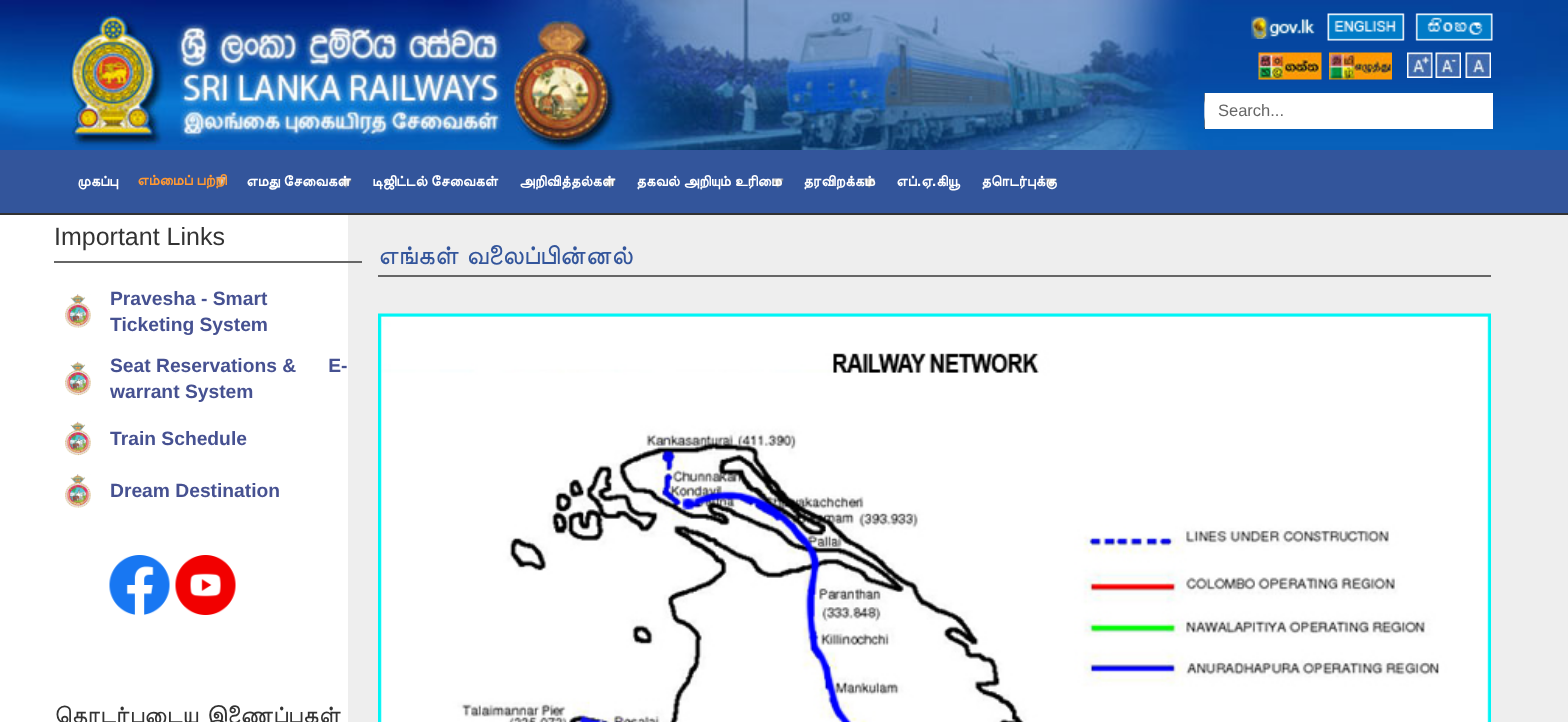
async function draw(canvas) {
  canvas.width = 1568
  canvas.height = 722
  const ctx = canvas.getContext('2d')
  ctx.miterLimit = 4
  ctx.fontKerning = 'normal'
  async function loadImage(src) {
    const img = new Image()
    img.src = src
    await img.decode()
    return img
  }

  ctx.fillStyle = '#fff'
  ctx.fillRect(0, 0, 1568, 722)
  ctx.drawImage(await loadImage('image0.png'), 0, 0, 1568, 150)
  ctx.drawImage(await loadImage('image1.png'), 1251, 16, 64, 23)
  ctx.drawImage(await loadImage('image2.png'), 1327, 13, 78, 28)
  ctx.drawImage(await loadImage('image3.png'), 1415, 13, 78, 28)
  ctx.drawImage(await loadImage('image4.png'), 1258, 52, 64, 28)
  ctx.drawImage(await loadImage('image5.png'), 1329, 52, 63, 28)
  ctx.drawImage(await loadImage('image6.png'), 1407, 52, 26, 26)
  ctx.drawImage(await loadImage('image7.png'), 1435, 52, 26, 26)
  ctx.drawImage(await loadImage('image8.png'), 1465, 52, 26, 26)
  ctx.drawImage(await loadImage('image9.png'), 1204, 93, 1, 36)
  ctx.drawImage(await loadImage('image10.png'), 1204, 93, 1, 36)
  ctx.fillRect(1205, 93, 288, 36)
  ctx.font = '16.5px Liberation Sans'
  ctx.fillStyle = '#666'
  ctx.fillText('Search...', 1218, 116)
  ctx.fillStyle = '#33559b'
  ctx.fillRect(0, 150, 1568, 63)
  ctx.font = 'bold 15px FreeSans'
  ctx.fillStyle = '#fff'
  ctx.fillText('முகப்பு', 77, 186)
  ctx.drawImage(await loadImage('image11.png'), 215, 176, 12, 11)
  ctx.fillStyle = '#f93'
  ctx.fillText('எம்மைப் பற்றி', 137, 185)
  ctx.drawImage(await loadImage('image12.png'), 340, 178, 12, 10)
  ctx.fillStyle = '#fff'
  ctx.fillText('எமது சேவைகள்', 246, 186)
  ctx.fillText('டிஜிட்டல் சேவைகள்', 372, 186)
  ctx.drawImage(await loadImage('image13.png'), 604, 178, 12, 10)
  ctx.fillText('அறிவித்தல்கள்', 519, 186)
  ctx.drawImage(await loadImage('image12.png'), 772, 178, 12, 10)
  ctx.fillText('தகவல் அறியும் உரிமை', 636, 186)
  ctx.drawImage(await loadImage('image14.png'), 863, 178, 12, 10)
  ctx.fillText('தரவிறக்கம்', 803, 186)
  ctx.fillText('எப்', 896, 186)
  ctx.font = 'bold 15px Liberation Sans'
  ctx.fillText('.', 917, 186)
  ctx.font = 'bold 15px FreeSans'
  ctx.fillText('ஏ', 921, 186)
  ctx.font = 'bold 15px Liberation Sans'
  ctx.fillText('.', 932, 186)
  ctx.font = 'bold 15px FreeSans'
  ctx.fillText('கியூ', 936, 186)
  ctx.drawImage(await loadImage('image12.png'), 1045, 178, 12, 10)
  ctx.fillText('தொடர்புக்கு', 981, 186)
  ctx.fillStyle = '#323232'
  ctx.fillRect(0, 213, 1568, 2)
  ctx.fillStyle = '#eee'
  ctx.fillRect(348, 215, 1220, 507)
  ctx.fillStyle = '#666'
  ctx.fillRect(54, 261, 308, 2)
  ctx.font = '25px Liberation Sans'
  ctx.fillStyle = '#333'
  ctx.fillText('Important Links', 54, 245)
  ctx.drawImage(await loadImage('image15.png'), 65, 294, 26, 34)
  ctx.font = 'bold 19.25px Liberation Sans'
  ctx.fillStyle = '#465191'
  ctx.fillText('Pravesha - Smart', 110, 305)
  ctx.fillText('Ticketing System', 110, 331)
  ctx.drawImage(await loadImage('image16.png'), 65, 361, 26, 35)
  ctx.fillText('Seat Reservations &      E-', 110, 372)
  ctx.fillText('warrant System', 110, 398)
  ctx.drawImage(await loadImage('image16.png'), 65, 421, 26, 35)
  ctx.fillText('Train Schedule', 110, 445)
  ctx.drawImage(await loadImage('image15.png'), 65, 474, 26, 34)
  ctx.fillText('Dream Destination', 110, 497)
  ctx.drawImage(await loadImage('image17.png'), 109, 555, 61, 60)
  ctx.drawImage(await loadImage('image18.png'), 175, 555, 61, 60)
  ctx.font = '25px FreeSans'
  ctx.fillStyle = '#333'
  ctx.fillText('தொடர்புடைய', 54, 723)
  ctx.fillText('இணைப்புகள்', 205, 723)
  ctx.fillStyle = '#666'
  ctx.fillRect(378, 275, 1113, 2)
  ctx.wordSpacing = '1px'
  ctx.font = '26.9px FreeSans'
  ctx.fillStyle = '#33559b'
  ctx.fillText('எங்கள் வலைப்பின்னல்', 378, 264)
  ctx.drawImage(await loadImage('image19.png'), 378, 313, 1113, 409)
}

draw(document.querySelector('canvas'))
